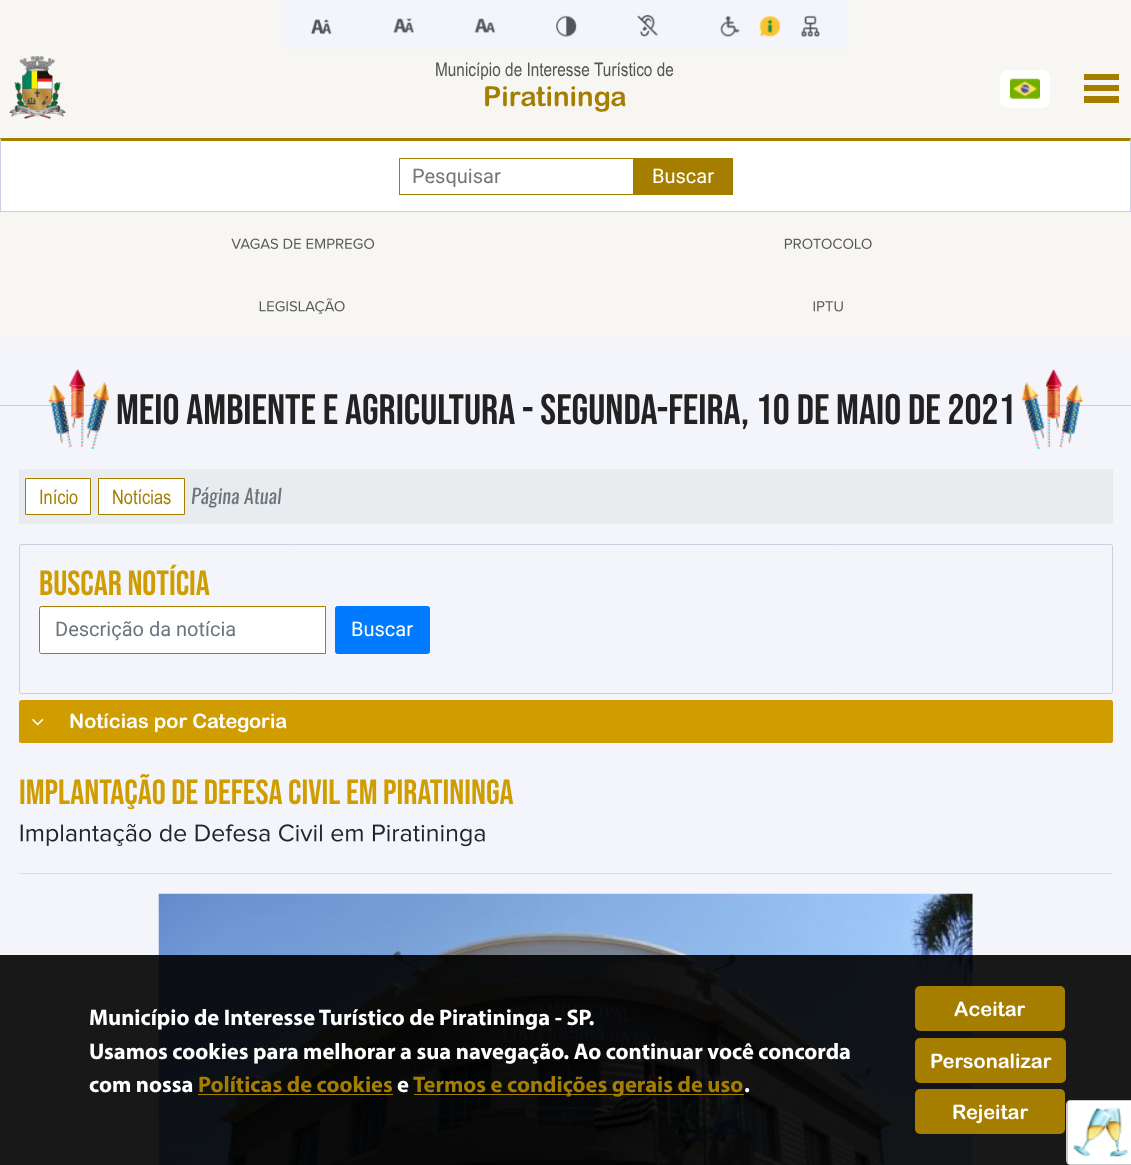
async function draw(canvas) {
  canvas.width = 1131
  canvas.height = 1165
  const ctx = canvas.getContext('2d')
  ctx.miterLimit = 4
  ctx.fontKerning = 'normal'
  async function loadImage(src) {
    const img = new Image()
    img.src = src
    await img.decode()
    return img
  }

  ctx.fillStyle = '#f7f6f2'
  ctx.fillRect(0, 0, 1131, 1165)
  ctx.fillStyle = '#f4f5fa'
  ctx.fillRect(283, 0, 566, 50)
  ctx.drawImage(await loadImage('image0.png'), 311, 19, 21, 15)
  ctx.drawImage(await loadImage('image1.png'), 393, 18, 21, 15)
  ctx.drawImage(await loadImage('image2.png'), 474, 18, 21, 15)
  ctx.drawImage(await loadImage('image3.png'), 556, 15, 21, 22)
  ctx.drawImage(await loadImage('image4.png'), 637, 15, 21, 22)
  ctx.drawImage(await loadImage('image5.png'), 720, 15, 20, 22)
  ctx.drawImage(await loadImage('image6.png'), 759, 15, 21, 22)
  ctx.drawImage(await loadImage('image7.png'), 801, 15, 19, 22)
  ctx.drawImage(await loadImage('image8.png'), 9, 56, 57, 63)
  ctx.font = '18.75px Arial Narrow'
  ctx.fillStyle = '#555'
  ctx.fillText('Município de Interesse Turístico de', 435, 76)
  ctx.font = 'bold 27.5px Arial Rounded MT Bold'
  ctx.fillStyle = '#a57e00'
  ctx.fillText('Piratininga', 483, 106)
  ctx.fillRect(1084, 74, 35, 6)
  ctx.fillRect(1084, 85, 35, 6)
  ctx.fillRect(1084, 96, 35, 7)
  ctx.fillStyle = '#fff'
  ctx.beginPath()
  ctx.roundRect(1000, 70, 50, 38, 8)
  ctx.fill()
  ctx.drawImage(await loadImage('image9.png'), 1010, 78, 30, 21)
  ctx.fillRect(1, 141, 1129, 70)
  ctx.fillStyle = '#a57e00'
  ctx.beginPath()
  ctx.moveTo(0, 138)
  ctx.lineTo(1131, 138)
  ctx.lineTo(1130, 141)
  ctx.lineTo(1, 141)
  ctx.closePath()
  ctx.fill()
  ctx.fillStyle = '#c9cee1'
  ctx.beginPath()
  ctx.moveTo(1131, 138)
  ctx.lineTo(1131, 212)
  ctx.lineTo(1130, 211)
  ctx.lineTo(1130, 141)
  ctx.closePath()
  ctx.fill()
  ctx.fillRect(0, 211, 1131, 1)
  ctx.beginPath()
  ctx.moveTo(0, 212)
  ctx.lineTo(0, 138)
  ctx.lineTo(1, 141)
  ctx.lineTo(1, 211)
  ctx.closePath()
  ctx.fill()
  ctx.strokeStyle = '#a57e00'
  ctx.strokeRect(399.5, 158.5, 236, 36)
  ctx.font = '20px Roboto'
  ctx.fillStyle = '#757575'
  ctx.fillText('Pesquisar', 412, 183)
  ctx.fillStyle = '#a57e00'
  ctx.fillRect(633, 158, 100, 37)
  ctx.fillStyle = '#fff'
  ctx.fillText('Buscar', 652, 183)
  ctx.drawImage(await loadImage('image10.png'), 231, 238, 144, 11)
  ctx.drawImage(await loadImage('image11.png'), 784, 238, 88, 11)
  ctx.drawImage(await loadImage('image12.png'), 259, 298, 86, 16)
  ctx.drawImage(await loadImage('image13.png'), 813, 301, 30, 11)
  ctx.fillStyle = '#f4f5fa'
  ctx.fillRect(0, 338, 1131, 827)
  ctx.fillStyle = '#c9cee1'
  ctx.fillRect(0, 405, 98, 1)
  ctx.drawImage(await loadImage('image14.png'), 48, 369, 62, 80)
  ctx.font = '42.5px Bebas Neue'
  ctx.fillStyle = '#222'
  ctx.fillText('Meio Ambiente e Agricultura - Segunda-feira, 10 de Maio de 2021', 116, 424)
  ctx.fillStyle = '#c9cee1'
  ctx.fillRect(1034, 405, 97, 1)
  ctx.drawImage(await loadImage('image15.png'), 1021, 369, 62, 81)
  ctx.fillStyle = '#e9ecef'
  ctx.fillRect(19, 469, 1094, 55)
  ctx.fillStyle = '#fff'
  ctx.beginPath()
  ctx.rect(25.5, 478.5, 65, 36)
  ctx.fill()
  ctx.stroke()
  ctx.font = '20px Arial Narrow'
  ctx.fillStyle = '#a57e00'
  ctx.fillText('Início', 39, 504)
  ctx.fillStyle = '#fff'
  ctx.beginPath()
  ctx.rect(98.5, 478.5, 86, 36)
  ctx.fill()
  ctx.stroke()
  ctx.fillStyle = '#a57e00'
  ctx.fillText('Notícias', 112, 504)
  ctx.font = 'italic 20px Oswald'
  ctx.fillStyle = '#6c757d'
  ctx.fillText('Página Atual', 191, 504)
  ctx.beginPath()
  ctx.roundRect(19.5, 544.5, 1093, 149, 2)
  ctx.strokeStyle = '#c9cee1'
  ctx.stroke()
  ctx.font = '35px Bebas Neue'
  ctx.fillStyle = '#d09d00'
  ctx.fillText('Buscar Notícia', 39, 595)
  ctx.fillStyle = '#fff'
  ctx.beginPath()
  ctx.roundRect(40, 608, 285, 45, [1, 0, 0, 1])
  ctx.fill()
  ctx.beginPath()
  ctx.roundRect(39.5, 606.5, 286, 47, [2, 0, 0, 2])
  ctx.strokeStyle = '#a57e00'
  ctx.stroke()
  ctx.font = '20px Roboto'
  ctx.fillStyle = '#6c757d'
  ctx.fillText('Descrição da notícia', 55, 636)
  ctx.fillStyle = '#007bff'
  ctx.beginPath()
  ctx.roundRect(335.5, 606.5, 94, 47, 2)
  ctx.fill()
  ctx.strokeStyle = '#007bff'
  ctx.stroke()
  ctx.fillStyle = '#fff'
  ctx.fillText('Buscar', 351, 636)
  ctx.fillStyle = '#d09d00'
  ctx.beginPath()
  ctx.roundRect(19, 700, 1094, 43, 2.5)
  ctx.fill()
  ctx.drawImage(await loadImage('image16.png'), 32, 718, 12, 8)
  ctx.font = 'bold 20px Arial Rounded MT Bold'
  ctx.fillStyle = '#fff'
  ctx.fillText('Notícias por Categoria', 69, 728)
  ctx.font = '35px Bebas Neue'
  ctx.fillStyle = '#d09d00'
  ctx.fillText('Implantação de Defesa Civil em Piratininga', 19, 804)
  ctx.drawImage(await loadImage('image17.png'), 20, 823, 465, 24)
  ctx.fillStyle = '#dcdde1'
  ctx.fillRect(19, 873, 1094, 1)
  ctx.drawImage(await loadImage('image18.png'), 158, 893, 815, 272)
  ctx.fillStyle = '#000000e6'
  ctx.fillRect(0, 955, 1131, 210)
  ctx.font = 'bold 22.5px Myriad'
  ctx.fillStyle = '#fff'
  ctx.fillText('Município de Interesse Turístico de Piratininga - SP.', 89, 1025)
  ctx.fillText('Usamos cookies para melhorar a sua navegação. Ao continuar você concorda', 89, 1059)
  ctx.fillText('com nossa', 89, 1092)
  ctx.fillStyle = '#a57e00'
  ctx.fillText('Políticas de cookies', 198, 1092)
  ctx.fillRect(198, 1094, 195, 1)
  ctx.fillStyle = '#fff'
  ctx.fillText('e', 397, 1092)
  ctx.fillStyle = '#a57e00'
  ctx.fillRect(414, 1094, 330, 1)
  ctx.fillText('Termos e condições gerais de uso', 413, 1092)
  ctx.fillStyle = '#fff'
  ctx.fillText('.', 744, 1092)
  ctx.fillStyle = '#a57e00'
  ctx.beginPath()
  ctx.roundRect(915, 986, 150, 45, 5)
  ctx.fill()
  ctx.font = 'bold 20px Arial Rounded MT Bold'
  ctx.fillStyle = '#fff'
  ctx.fillText('Aceitar', 954, 1016)
  ctx.fillStyle = '#a57e00'
  ctx.beginPath()
  ctx.roundRect(915, 1038, 151, 45, 5)
  ctx.fill()
  ctx.fillStyle = '#fff'
  ctx.fillText('Personalizar', 930, 1068)
  ctx.fillStyle = '#a57e00'
  ctx.beginPath()
  ctx.roundRect(915, 1089, 150, 45, 5)
  ctx.fill()
  ctx.fillStyle = '#fff'
  ctx.fillText('Rejeitar', 952, 1119)
  ctx.fillStyle = '#c7c9ce'
  ctx.beginPath()
  ctx.moveTo(1071, 1100)
  ctx.lineTo(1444, 1100)
  ctx.lineTo(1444, 1165)
  ctx.lineTo(1071, 1165)
  ctx.bezierCurveTo(1068, 1165, 1066, 1163, 1066, 1160)
  ctx.lineTo(1066, 1105)
  ctx.bezierCurveTo(1066, 1102, 1068, 1100, 1071, 1100)
  ctx.closePath()
  ctx.moveTo(1071, 1101)
  ctx.lineTo(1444, 1101)
  ctx.lineTo(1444, 1164)
  ctx.lineTo(1071, 1164)
  ctx.bezierCurveTo(1069, 1164, 1068, 1162, 1068, 1160)
  ctx.lineTo(1068, 1105)
  ctx.bezierCurveTo(1068, 1103, 1069, 1101, 1071, 1101)
  ctx.closePath()
  ctx.fill('evenodd')
  ctx.fillStyle = '#fff'
  ctx.fillRect(1068, 1101, 63, 63)
  ctx.drawImage(await loadImage('image19.png'), 1073, 1107, 55, 50)
}

draw(document.querySelector('canvas'))
